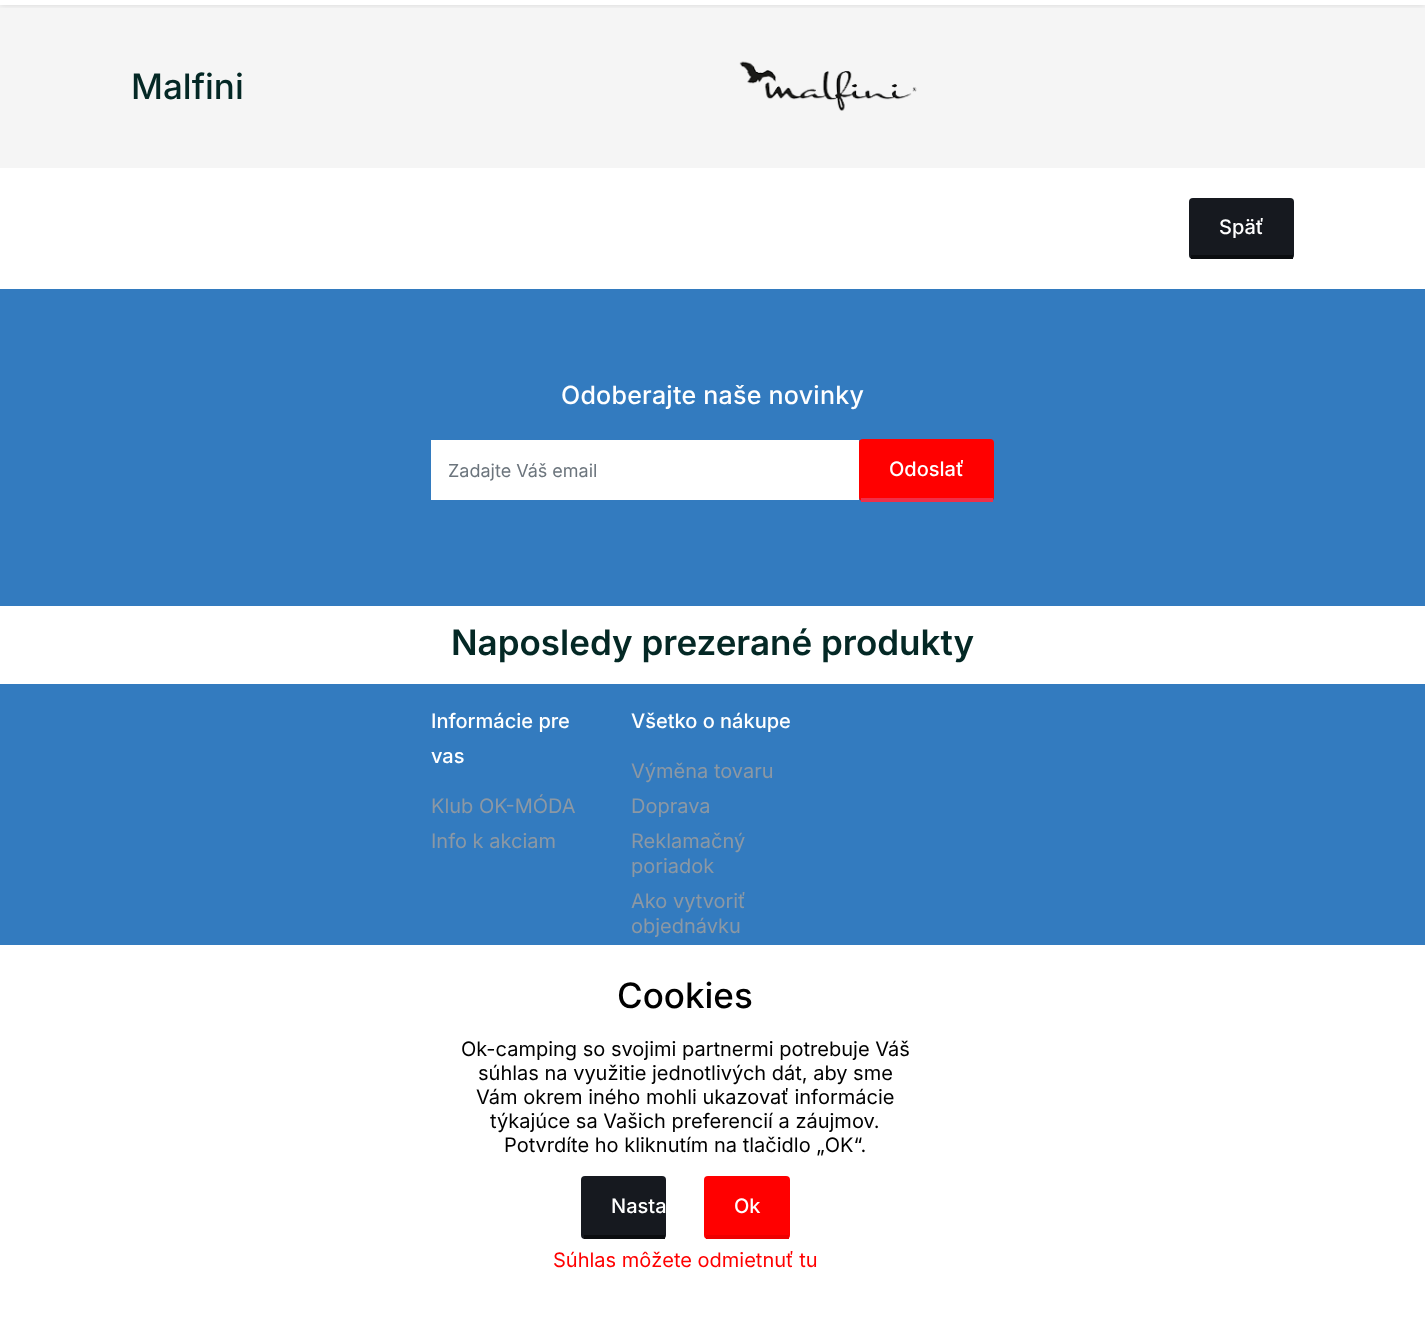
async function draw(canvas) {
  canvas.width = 1425
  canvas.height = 1332
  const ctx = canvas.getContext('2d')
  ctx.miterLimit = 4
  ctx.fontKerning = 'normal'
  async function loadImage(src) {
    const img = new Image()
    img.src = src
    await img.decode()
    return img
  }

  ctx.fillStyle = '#fff'
  ctx.fillRect(0, 0, 1425, 1332)
  ctx.fillStyle = '#f5f5f5'
  ctx.fillRect(0, 5, 1425, 163)
  ctx.save()
  ctx.beginPath()
  ctx.rect(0, 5, 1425, 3)
  ctx.clip()
  ctx.fillStyle = '#0000001f'
  ctx.filter = 'blur(3px)'
  ctx.beginPath()
  ctx.rect(0, -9, 1425, 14)
  ctx.fill()
  ctx.filter = 'none'
  ctx.restore()
  ctx.font = '500 35px Inter'
  ctx.fillStyle = '#042825'
  ctx.fillText('Malfini', 131, 99)
  ctx.drawImage(await loadImage('image0.png'), 739, 61, 178, 50)
  ctx.fillStyle = '#16191f'
  ctx.beginPath()
  ctx.roundRect(1189, 198, 105, 61, 4)
  ctx.fill()
  ctx.fillStyle = '#0b0d10'
  ctx.fillRect(1191, 255, 102, 4)
  ctx.font = '500 20px Inter'
  ctx.fillStyle = '#fff'
  ctx.fillText('Späť', 1219, 234)
  ctx.fillStyle = '#337bbf'
  ctx.fillRect(0, 289, 1425, 317)
  ctx.letterSpacing = '0.25px'
  ctx.font = '500 25px Inter'
  ctx.fillStyle = '#fff'
  ctx.fillText('Odoberajte naše novinky', 561, 404)
  ctx.fillRect(431, 440, 428, 60)
  ctx.letterSpacing = '0px'
  ctx.font = '18px Inter'
  ctx.fillStyle = '#6c757d'
  ctx.fillText('Zadajte Váš email', 448, 477)
  ctx.fillStyle = '#f00'
  ctx.beginPath()
  ctx.roundRect(859, 439, 135, 62, 4)
  ctx.fill()
  ctx.fillStyle = '#ef2f49'
  ctx.fillRect(861, 498, 132, 4)
  ctx.font = '500 20px Inter'
  ctx.fillStyle = '#fff'
  ctx.fillText('Odoslať', 889, 476)
  ctx.font = '600 35px Inter'
  ctx.fillStyle = '#042825'
  ctx.fillText('Naposledy prezerané produkty', 451, 655)
  ctx.fillStyle = '#337bbf'
  ctx.fillRect(0, 684, 1425, 261)
  ctx.font = '500 20px Inter'
  ctx.fillStyle = '#fff'
  ctx.fillText('Informácie pre', 431, 728)
  ctx.fillText('vas', 431, 763)
  ctx.font = '20px Inter'
  ctx.fillStyle = '#8c98a4'
  ctx.fillText('Klub OK-MÓDA', 431, 813)
  ctx.fillText('Info k akciam', 431, 848)
  ctx.font = '500 20px Inter'
  ctx.fillStyle = '#fff'
  ctx.fillText('Všetko o nákupe', 631, 728)
  ctx.font = '20px Inter'
  ctx.fillStyle = '#8c98a4'
  ctx.fillText('Výměna tovaru', 631, 778)
  ctx.fillText('Doprava', 631, 813)
  ctx.fillText('Reklamačný', 631, 848)
  ctx.fillText('poriadok', 631, 873)
  ctx.fillText('Ako vytvoriť', 631, 908)
  ctx.fillText('objednávku', 631, 933)
  ctx.font = '500 35px Inter'
  ctx.fillStyle = '#000'
  ctx.fillText('Cookies', 617, 1008)
  ctx.font = '20px Inter'
  ctx.fillText('Ok-camping so svojimi partnermi potrebuje Váš', 461, 1056)
  ctx.fillText('súhlas na využitie jednotlivých dát, aby sme', 478, 1080)
  ctx.fillText('Vám okrem iného mohli ukazovať informácie', 476, 1104)
  ctx.fillText('týkajúce sa Vašich preferencií a záujmov.', 490, 1128)
  ctx.fillText('Potvrdíte ho kliknutím na tlačidlo „OK“.', 504, 1152)
  ctx.fillStyle = '#16191f'
  ctx.beginPath()
  ctx.roundRect(581, 1176, 85, 63, 4)
  ctx.fill()
  ctx.fillStyle = '#0b0d10'
  ctx.fillRect(584, 1235, 81, 4)
  ctx.font = '500 20px Inter'
  ctx.fillStyle = '#fff'
  ctx.fillText('Nasta', 611, 1213)
  ctx.fillStyle = '#f00'
  ctx.beginPath()
  ctx.roundRect(704, 1176, 86, 63, 4)
  ctx.fill()
  ctx.fillStyle = '#ed0000'
  ctx.fillRect(706, 1235, 83, 4)
  ctx.fillStyle = '#fff'
  ctx.fillText('Ok', 734, 1213)
  ctx.font = '20px Inter'
  ctx.fillStyle = '#f00'
  ctx.fillText('Súhlas môžete odmietnuť tu', 553, 1267)
}

draw(document.querySelector('canvas'))
